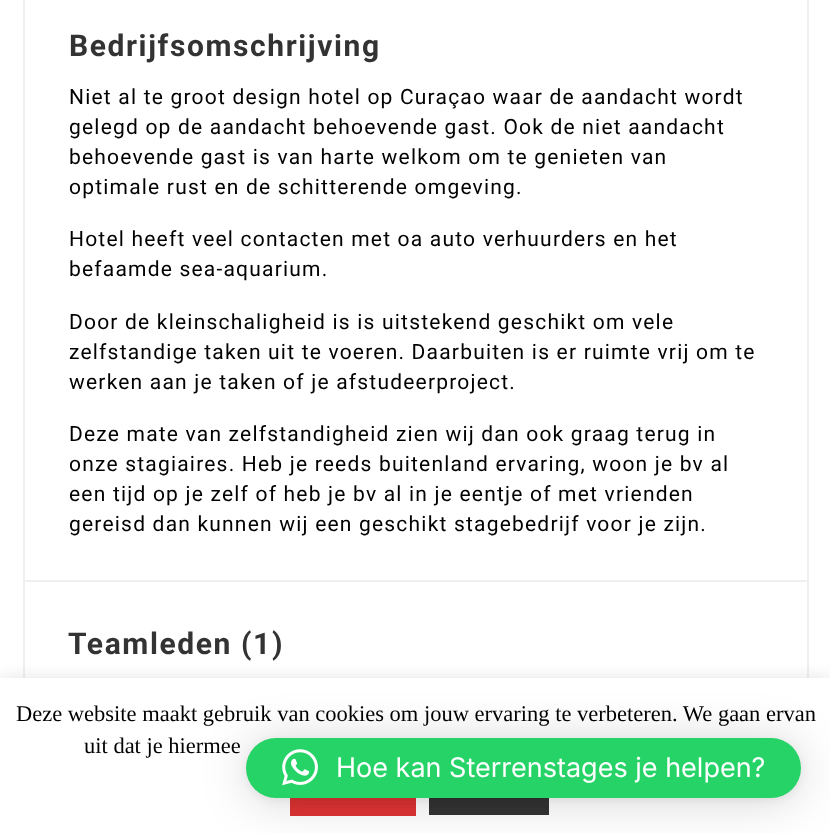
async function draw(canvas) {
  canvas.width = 830
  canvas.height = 833
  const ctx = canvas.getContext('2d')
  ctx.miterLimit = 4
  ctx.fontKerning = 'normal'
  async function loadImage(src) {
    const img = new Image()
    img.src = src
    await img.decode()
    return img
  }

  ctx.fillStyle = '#fff'
  ctx.fillRect(0, 0, 830, 833)
  ctx.strokeStyle = '#efefef'
  ctx.lineWidth = 2
  ctx.strokeRect(24, -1, 784, 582)
  ctx.letterSpacing = '1.6px'
  ctx.font = 'bold 30px Roboto'
  ctx.fillStyle = '#333'
  ctx.fillText('Bedrijfsomschrijving', 69, 56)
  ctx.letterSpacing = '1.2px'
  ctx.font = '21px Roboto'
  ctx.fillStyle = '#000'
  ctx.fillText('Niet al te groot design hotel op Curaçao waar de aandacht wordt', 69, 104)
  ctx.fillText('gelegd op de aandacht behoevende gast. Ook de niet aandacht', 69, 134)
  ctx.fillText('behoevende gast is van harte welkom om te genieten van', 69, 164)
  ctx.fillText('optimale rust en de schitterende omgeving.', 69, 194)
  ctx.fillText('Hotel heeft veel contacten met oa auto verhuurders en het', 69, 246)
  ctx.fillText('befaamde sea-aquarium.', 69, 276)
  ctx.fillText('Door de kleinschaligheid is is uitstekend geschikt om vele', 69, 329)
  ctx.fillText('zelfstandige taken uit te voeren. Daarbuiten is er ruimte vrij om te', 69, 359)
  ctx.fillText('werken aan je taken of je afstudeerproject.', 69, 389)
  ctx.fillText('Deze mate van zelfstandigheid zien wij dan ook graag terug in', 69, 441)
  ctx.fillText('onze stagiaires. Heb je reeds buitenland ervaring, woon je bv al', 69, 471)
  ctx.fillText('een tijd op je zelf of heb je bv al in je eentje of met vrienden', 69, 501)
  ctx.fillText('gereisd dan kunnen wij een geschikt stagebedrijf voor je zijn.', 69, 531)
  ctx.fillStyle = '#efefef'
  ctx.fillRect(807, 582, 2, 96)
  ctx.fillRect(23, 582, 2, 96)
  ctx.letterSpacing = '1.6px'
  ctx.font = 'bold 30px Roboto'
  ctx.fillStyle = '#333'
  ctx.fillText('Teamleden (1)', 68, 654)
  ctx.fillStyle = '#acabab4d'
  ctx.filter = 'blur(7.5px)'
  ctx.beginPath()
  ctx.rect(0, 677, 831, 156)
  ctx.fill()
  ctx.filter = 'none'
  ctx.fillStyle = '#fff'
  ctx.fillRect(0, 678, 830, 155)
  ctx.letterSpacing = '0px'
  ctx.font = '22.5px Liberation Serif'
  ctx.fillStyle = '#000'
  ctx.fillText('Deze website maakt gebruik van cookies om jouw ervaring te verbeteren. We gaan ervan', 16, 721)
  ctx.fillText('uit dat je hiermee', 84, 753)
  ctx.fillStyle = '#d33'
  ctx.fillRect(290, 798, 126, 18)
  ctx.fillStyle = '#333'
  ctx.fillRect(429, 798, 120, 17)
  ctx.fillStyle = '#00000029'
  ctx.filter = 'blur(24px)'
  ctx.beginPath()
  ctx.roundRect(246, 741, 555, 60, 30)
  ctx.fill()
  ctx.filter = 'none'
  ctx.fillStyle = '#0000000f'
  ctx.filter = 'blur(4.5px)'
  ctx.beginPath()
  ctx.roundRect(246, 740, 555, 60, 30)
  ctx.fill()
  ctx.filter = 'none'
  ctx.fillStyle = '#25d366'
  ctx.beginPath()
  ctx.roundRect(246, 738, 555, 60, 30)
  ctx.fill()
  ctx.drawImage(await loadImage('image0.png'), 282, 749, 36, 37)
  ctx.font = '27px Inter'
  ctx.fillStyle = '#fff'
  ctx.fillText('Hoe kan Sterrenstages je helpen?', 336, 777)
}

draw(document.querySelector('canvas'))
